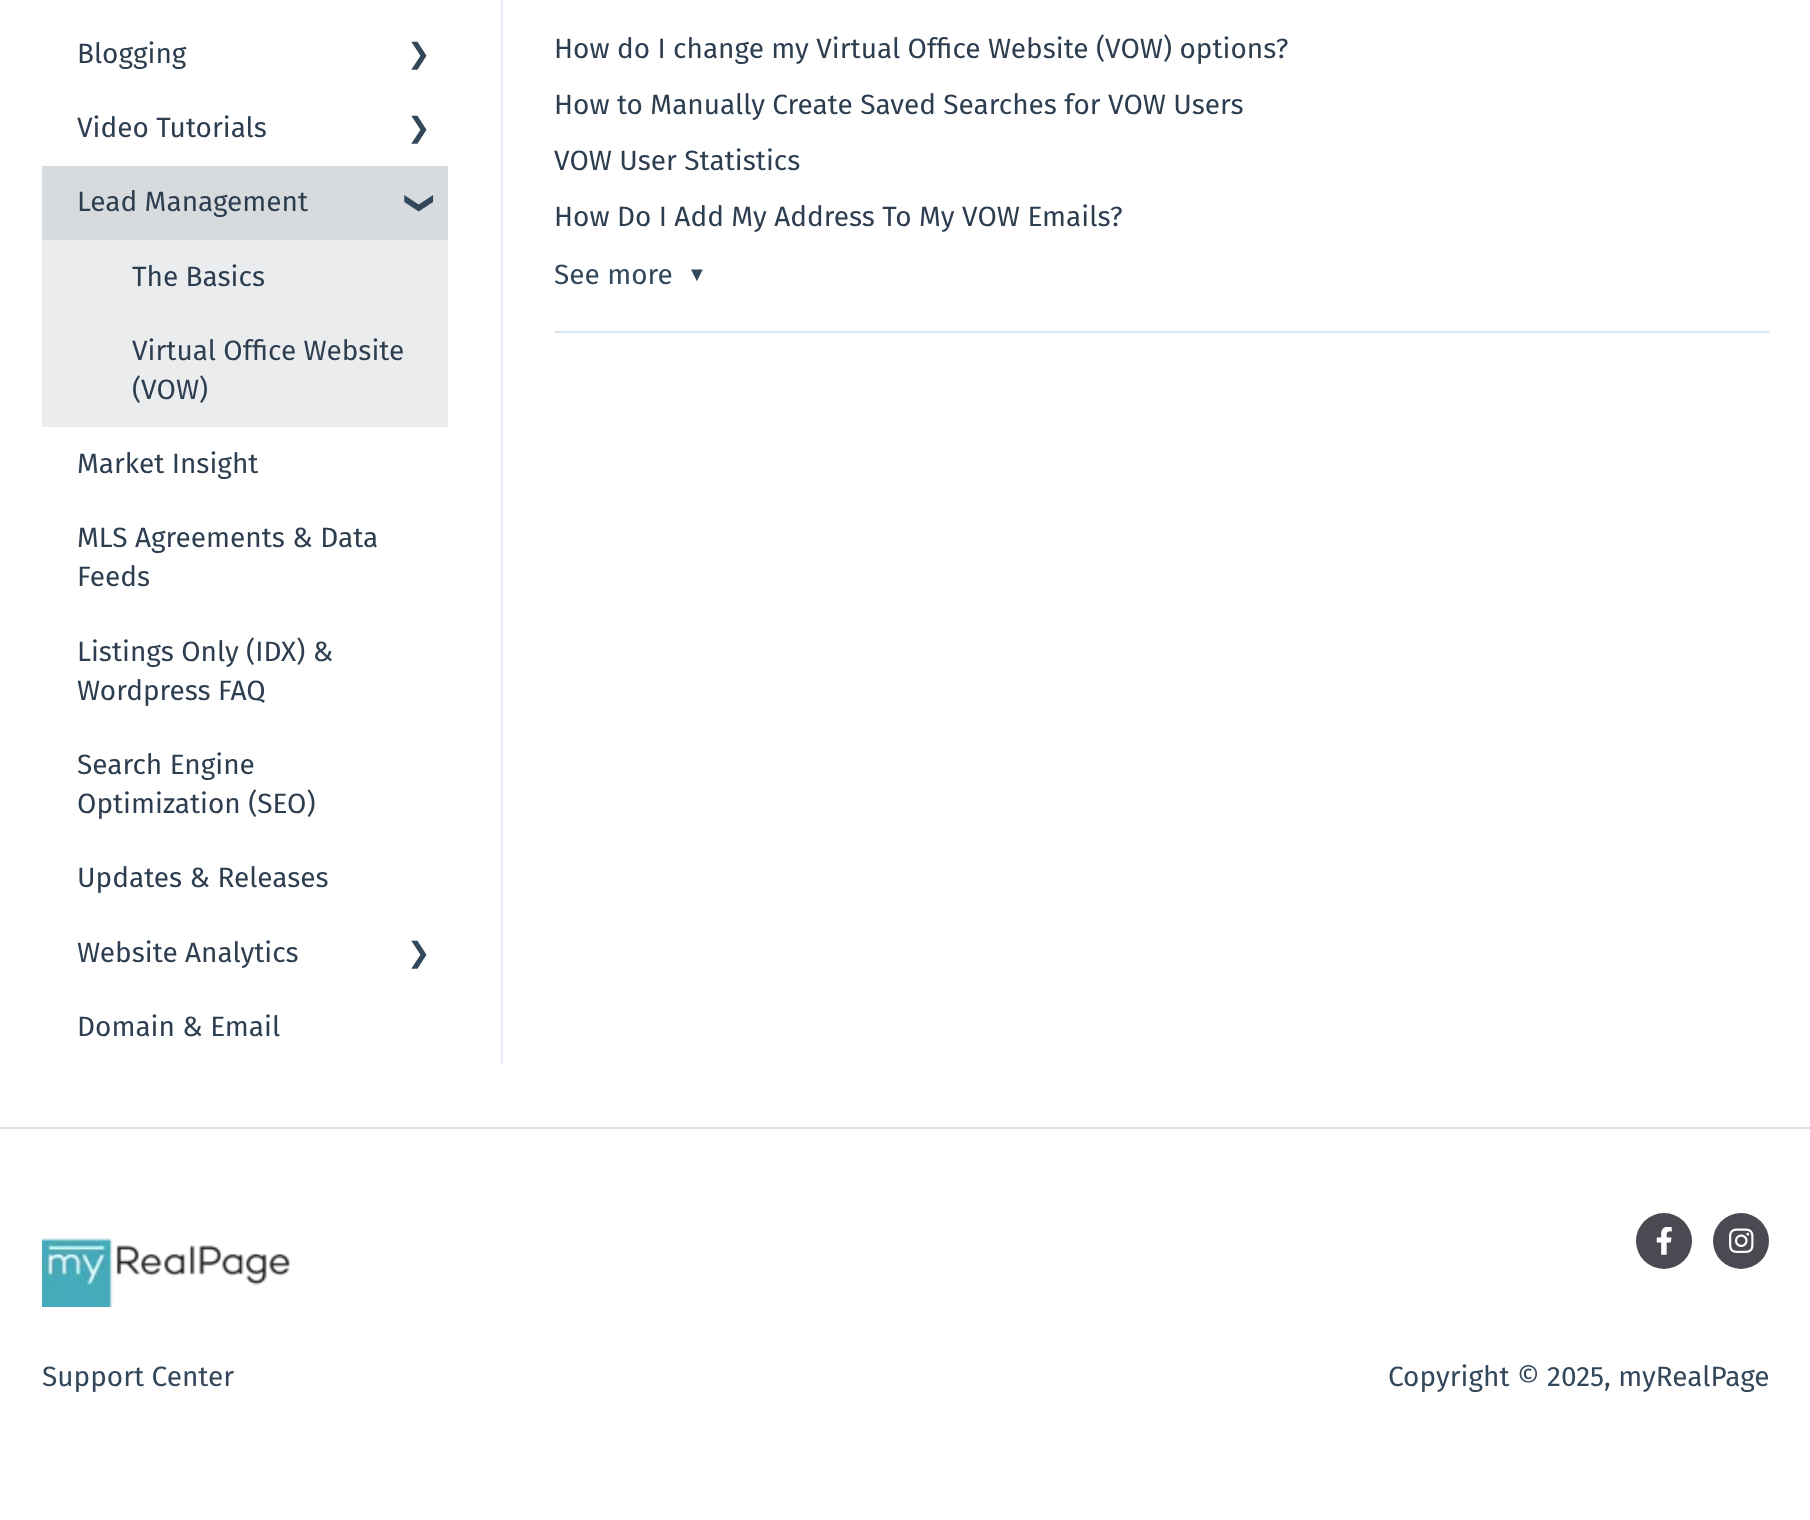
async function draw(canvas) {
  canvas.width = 1810
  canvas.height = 1520
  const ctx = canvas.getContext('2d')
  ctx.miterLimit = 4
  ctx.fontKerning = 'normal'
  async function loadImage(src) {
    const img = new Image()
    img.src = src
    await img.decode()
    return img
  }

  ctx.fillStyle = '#fff'
  ctx.fillRect(0, 0, 1810, 1520)
  ctx.fillStyle = '#e2ebf4'
  ctx.fillRect(501, 0, 2, 1064)
  ctx.font = '28px Fira Sans'
  ctx.fillStyle = '#2d3e50'
  ctx.fillText('Blogging', 77, 63)
  ctx.font = '28px DejaVu Sans'
  ctx.fillStyle = '#33475b'
  ctx.fillText('❯', 407, 63)
  ctx.font = '28px Fira Sans'
  ctx.fillStyle = '#2d3e50'
  ctx.fillText('Video Tutorials', 77, 137)
  ctx.font = '28px DejaVu Sans'
  ctx.fillStyle = '#33475b'
  ctx.fillText('❯', 407, 137)
  ctx.fillStyle = '#eaecee'
  ctx.fillRect(42, 240, 406, 187)
  ctx.fillStyle = '#d7dbde'
  ctx.fillRect(42, 166, 406, 74)
  ctx.font = '28px Fira Sans'
  ctx.fillStyle = '#2d3e50'
  ctx.fillText('Lead Management', 77, 211)
  ctx.font = 'bold 28px DejaVu Sans'
  ctx.fillStyle = '#33475b'
  ctx.save()
  ctx.translate(411, 191)
  ctx.rotate(90 * Math.PI / 180)
  ctx.fillText('❯', 0, 0)
  ctx.restore()
  ctx.font = '28px Fira Sans'
  ctx.fillStyle = '#2d3e50'
  ctx.fillText('The Basics', 132, 286)
  ctx.fillText('Virtual Office Website', 132, 360)
  ctx.fillText('(VOW)', 132, 399)
  ctx.fillText('Market Insight', 77, 473)
  ctx.fillText('MLS Agreements & Data', 77, 547)
  ctx.fillText('Feeds', 77, 586)
  ctx.fillText('Listings Only (IDX) &', 77, 661)
  ctx.fillText('Wordpress FAQ', 77, 700)
  ctx.fillText('Search Engine', 77, 774)
  ctx.fillText('Optimization (SEO)', 77, 813)
  ctx.fillText('Updates & Releases', 77, 887)
  ctx.fillText('Website Analytics', 77, 962)
  ctx.font = '28px DejaVu Sans'
  ctx.fillStyle = '#33475b'
  ctx.fillText('❯', 407, 962)
  ctx.font = '28px Fira Sans'
  ctx.fillStyle = '#2d3e50'
  ctx.fillText('Domain & Email', 77, 1036)
  ctx.fillStyle = '#d9e5f0'
  ctx.fillRect(555, 331, 1214, 2)
  ctx.fillStyle = '#2d3e50'
  ctx.fillText('How do I change my Virtual Office Website (VOW) options?', 554, 58)
  ctx.fillText('How to Manually Create Saved Searches for VOW Users', 554, 114)
  ctx.fillText('VOW User Statistics', 554, 170)
  ctx.fillText('How Do I Add My Address To My VOW Emails?', 554, 226)
  ctx.fillStyle = '#33475b'
  ctx.fillText('See more', 554, 284)
  ctx.font = '20px Liberation Sans'
  ctx.fillText('▼', 687, 281)
  ctx.fillStyle = '#e0e0e0'
  ctx.fillRect(0, 1127, 1810, 2)
  ctx.drawImage(await loadImage('image0.png'), 42, 1238, 249, 69)
  ctx.font = '28px Fira Sans'
  ctx.fillStyle = '#33475b'
  ctx.fillText('Support Center', 42, 1386)
  ctx.fillStyle = '#494a52'
  ctx.beginPath()
  ctx.arc(1664, 1241, 28, 0, 2 * Math.PI)
  ctx.fill()
  ctx.drawImage(await loadImage('image1.png'), 1656, 1227, 16, 28)
  ctx.beginPath()
  ctx.arc(1741, 1241, 28, 0, 2 * Math.PI)
  ctx.fill()
  ctx.drawImage(await loadImage('image2.png'), 1729, 1228, 25, 25)
  ctx.fillStyle = '#33475b'
  ctx.fillText('Copyright © 2025, myRealPage', 1388, 1386)
}

draw(document.querySelector('canvas'))
